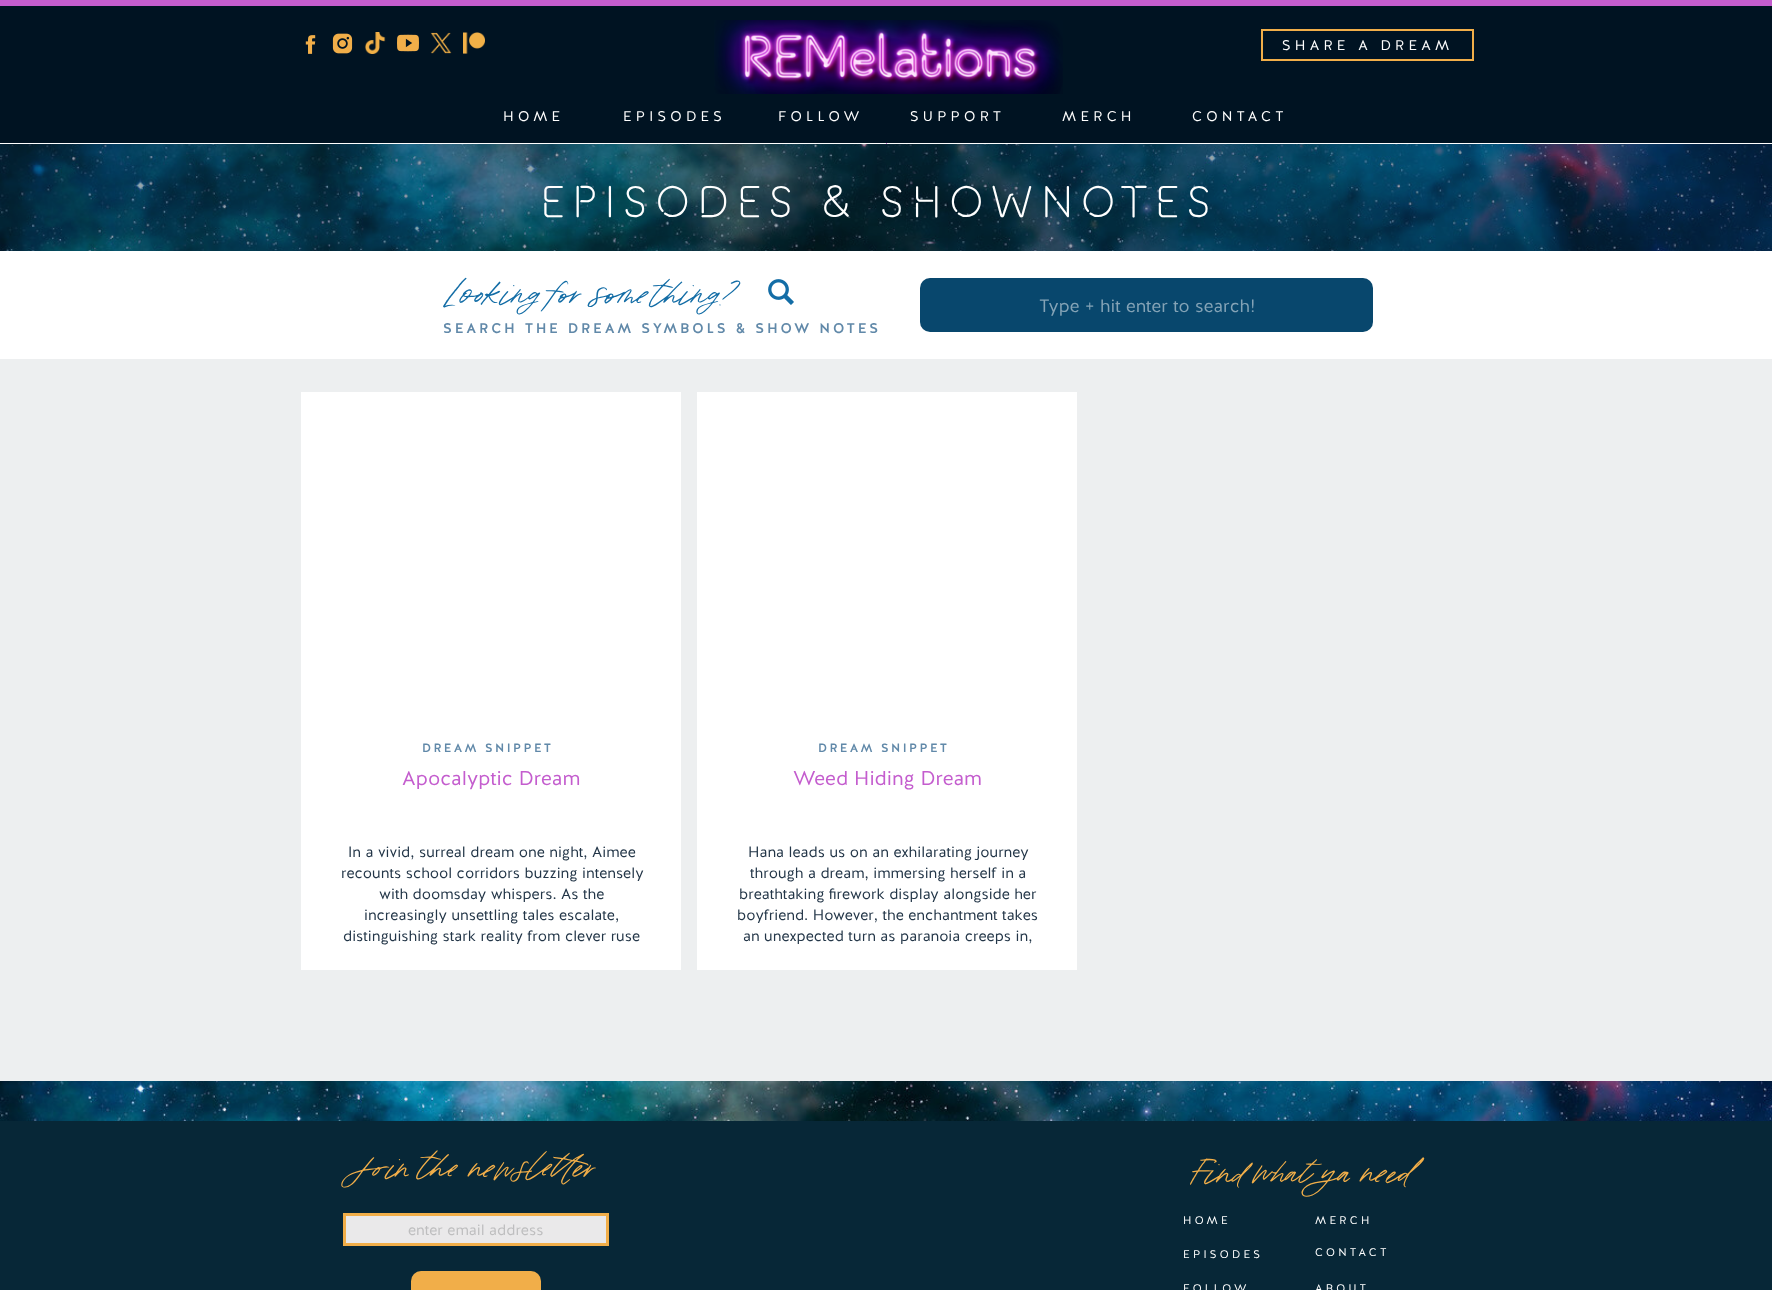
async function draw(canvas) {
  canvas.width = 1772
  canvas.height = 1290
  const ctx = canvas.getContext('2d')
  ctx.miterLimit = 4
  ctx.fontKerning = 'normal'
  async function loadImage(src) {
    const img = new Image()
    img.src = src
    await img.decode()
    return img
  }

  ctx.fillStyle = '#fff'
  ctx.fillRect(0, 0, 1772, 1290)
  ctx.fillStyle = '#001322'
  ctx.fillRect(0, 6, 1772, 137)
  ctx.fillStyle = '#c45dce'
  ctx.fillRect(0, 0, 1772, 6)
  ctx.drawImage(await loadImage('image0.png'), 305, 35, 11, 19)
  ctx.drawImage(await loadImage('image1.png'), 332, 33, 21, 21)
  ctx.drawImage(await loadImage('image2.png'), 364, 32, 22, 22)
  ctx.drawImage(await loadImage('image3.png'), 397, 34, 22, 18)
  ctx.drawImage(await loadImage('image4.png'), 430, 32, 22, 22)
  ctx.drawImage(await loadImage('image5.png'), 463, 32, 22, 22)
  ctx.drawImage(await loadImage('image6.png'), 714, 20, 349, 74)
  ctx.strokeStyle = '#f1ae49'
  ctx.lineWidth = 2
  ctx.strokeRect(1262, 30, 211, 30)
  ctx.letterSpacing = '4.25px'
  ctx.font = '14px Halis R'
  ctx.fillStyle = '#fff'
  ctx.fillText('SHARE A DREAM', 1282, 50)
  ctx.fillText('HOME', 503, 121)
  ctx.fillText('EPISODES', 623, 121)
  ctx.fillText('FOLLOW', 778, 121)
  ctx.fillText('SUPPORT', 910, 121)
  ctx.fillText('MERCH', 1062, 121)
  ctx.fillText('CONTACT', 1192, 121)
  ctx.fillStyle = '#ce74d6'
  ctx.fillRect(886, 143, 1, 1)
  ctx.fillStyle = '#072737'
  ctx.fillRect(0, 144, 1772, 107)
  ctx.drawImage(await loadImage('image7.png'), 0, 144, 1772, 107)
  ctx.letterSpacing = '9px'
  ctx.font = '300 45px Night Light'
  ctx.fillStyle = '#fff'
  ctx.fillText('EPISODES & SHOWNOTES', 541, 217)
  ctx.letterSpacing = '0px'
  ctx.font = '42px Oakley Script'
  ctx.fillStyle = '#136da6'
  ctx.fillText('Looking for something?', 443, 309)
  ctx.drawImage(await loadImage('image8.png'), 768, 279, 26, 26)
  ctx.fillStyle = '#08476d'
  ctx.beginPath()
  ctx.roundRect(920, 278, 453, 54, 10)
  ctx.fill()
  ctx.font = '18px Halis R'
  ctx.fillStyle = '#84a3b6'
  ctx.fillText('Type + hit enter to search!', 1039, 312)
  ctx.letterSpacing = '2.8px'
  ctx.font = '500 14px Halis R'
  ctx.fillStyle = '#6189a9'
  ctx.fillText('SEARCH THE DREAM SYMBOLS & SHOW NOTES', 443, 333)
  ctx.fillStyle = '#edeff0'
  ctx.fillRect(0, 359, 1772, 722)
  ctx.fillStyle = '#fff'
  ctx.fillRect(301, 392, 380, 578)
  ctx.fillRect(697, 392, 380, 578)
  ctx.letterSpacing = '2.4px'
  ctx.font = '500 12px Halis R'
  ctx.fillStyle = '#6189a9'
  ctx.fillText('DREAM SNIPPET', 422, 752)
  ctx.fillText('DREAM SNIPPET', 818, 752)
  ctx.letterSpacing = '0px'
  ctx.font = '20px Halis R'
  ctx.fillStyle = '#c45dce'
  ctx.fillText('Apocalyptic Dream', 402, 785)
  ctx.fillText('Weed Hiding Dream', 793, 785)
  ctx.font = '15px Halis R'
  ctx.fillStyle = '#233648'
  ctx.fillText('In a vivid, surreal dream one night, Aimee', 348, 857)
  ctx.fillText('recounts school corridors buzzing intensely', 341, 878)
  ctx.fillText('with doomsday whispers. As the', 379, 899)
  ctx.fillText('increasingly unsettling tales escalate,', 364, 920)
  ctx.fillText('distinguishing stark reality from clever ruse', 343, 941)
  ctx.fillText('Hana leads us on an exhilarating journey', 748, 857)
  ctx.fillText('through a dream, immersing herself in a', 750, 878)
  ctx.fillText('breathtaking firework display alongside her', 739, 899)
  ctx.fillText('boyfriend. However, the enchantment takes', 737, 920)
  ctx.fillText('an unexpected turn as paranoia creeps in,', 743, 941)
  ctx.drawImage(await loadImage('image9.png'), 0, 1081, 1772, 40)
  ctx.fillStyle = '#072737'
  ctx.fillRect(0, 1121, 1772, 169)
  ctx.font = '42px Oakley Script'
  ctx.fillStyle = '#f1ae49'
  ctx.fillText('Join the newsletter', 356, 1183)
  ctx.fillStyle = '#eae9ea'
  ctx.beginPath()
  ctx.rect(344.5, 1214.5, 263, 30)
  ctx.fill()
  ctx.lineWidth = 3
  ctx.stroke()
  ctx.font = '15px Halis R'
  ctx.fillStyle = '#bebebf'
  ctx.fillText('enter email address', 408, 1235)
  ctx.letterSpacing = '3.25px'
  ctx.font = '11px Halis R'
  ctx.fillStyle = '#fff'
  ctx.fillText('CONTACT', 1315, 1256)
  ctx.fillStyle = '#f1ae49'
  ctx.beginPath()
  ctx.roundRect(411, 1271, 130, 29, 10)
  ctx.fill()
  ctx.letterSpacing = '0px'
  ctx.font = '42px Oakley Script'
  ctx.fillText('Find what ya need', 1190, 1188)
  ctx.letterSpacing = '3.25px'
  ctx.font = '11px Halis R'
  ctx.fillStyle = '#fff'
  ctx.fillText('HOME', 1183, 1224)
  ctx.fillText('MERCH', 1315, 1224)
  ctx.fillText('EPISODES', 1183, 1258)
  ctx.fillText('FOLLOW', 1183, 1292)
  ctx.fillText('ABOUT', 1315, 1292)
}

draw(document.querySelector('canvas'))
